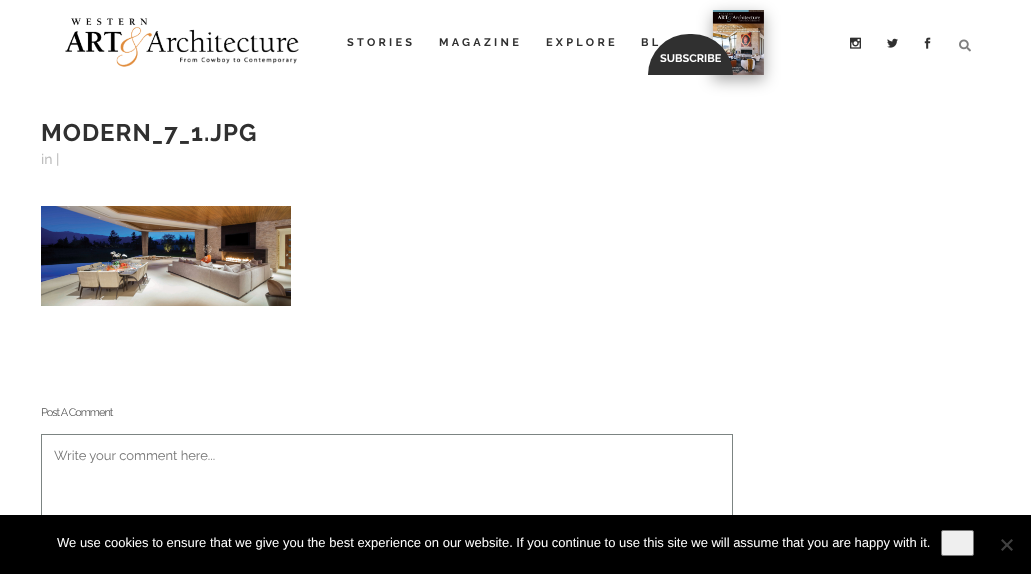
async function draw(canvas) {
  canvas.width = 1031
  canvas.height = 574
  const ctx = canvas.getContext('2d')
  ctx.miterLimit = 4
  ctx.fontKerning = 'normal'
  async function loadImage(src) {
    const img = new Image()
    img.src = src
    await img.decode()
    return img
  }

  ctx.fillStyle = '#fff'
  ctx.fillRect(0, 0, 1031, 574)
  ctx.drawImage(await loadImage('image0.png'), 65, 18, 234, 49)
  ctx.letterSpacing = '3.25px'
  ctx.font = 'bold 11px Raleway'
  ctx.fillStyle = '#303030'
  ctx.fillText('STORIES', 347, 46)
  ctx.fillText('MAGAZINE', 439, 46)
  ctx.fillText('EXPLORE', 546, 46)
  ctx.fillText('BL', 641, 46)
  ctx.drawImage(await loadImage('image1.png'), 959, 39, 12, 13)
  ctx.drawImage(await loadImage('image2.png'), 850, 37, 11, 12)
  ctx.drawImage(await loadImage('image3.png'), 887, 38, 11, 10)
  ctx.drawImage(await loadImage('image4.png'), 924, 37, 7, 12)
  ctx.fillStyle = '#00000059'
  ctx.filter = 'blur(7.5px)'
  ctx.beginPath()
  ctx.rect(713, 15, 51, 65)
  ctx.fill()
  ctx.filter = 'none'
  ctx.drawImage(await loadImage('image5.png'), 712, 10, 52, 65)
  ctx.fillStyle = '#303030'
  ctx.beginPath()
  ctx.roundRect(648, 34, 85, 41, [41, 41, 0, 0])
  ctx.fill()
  ctx.letterSpacing = '0px'
  ctx.fillStyle = '#fff'
  ctx.fillText('SUBSCRIBE', 660, 62)
  ctx.letterSpacing = '1px'
  ctx.font = 'bold 24px Raleway'
  ctx.fillStyle = '#303030'
  ctx.fillText('MODERN_7_1.JPG', 41, 141)
  ctx.letterSpacing = '0px'
  ctx.font = '500 14px Raleway'
  ctx.fillStyle = '#bebebe'
  ctx.fillText('in |', 41, 164)
  ctx.drawImage(await loadImage('image6.png'), 41, 206, 250, 100)
  ctx.letterSpacing = '-1px'
  ctx.font = '11px Raleway'
  ctx.fillStyle = '#565656'
  ctx.fillText('Post A Comment', 41, 416)
  ctx.strokeStyle = '#7c8482'
  ctx.strokeRect(41.5, 434.5, 691, 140)
  ctx.letterSpacing = '0px'
  ctx.font = '13px Raleway'
  ctx.fillStyle = '#757575'
  ctx.fillText('Write your comment here...', 54, 460)
  ctx.fillStyle = '#000'
  ctx.fillRect(0, 515, 1031, 59)
  ctx.font = '13px Liberation Sans'
  ctx.fillStyle = '#fff'
  ctx.fillText('We use cookies to ensure that we give you the best experience on our website. If you continue to use this site we will assume that you are happy with it.', 57, 547)
  ctx.fillStyle = '#efefef'
  ctx.beginPath()
  ctx.roundRect(941.5, 530.5, 32, 25, 1.5)
  ctx.fill()
  ctx.strokeStyle = '#767676'
  ctx.stroke()
  ctx.fillStyle = '#404040'
  ctx.beginPath()
  ctx.moveTo(1011.5, 539)
  ctx.lineTo(1013, 540.5)
  ctx.lineTo(1002.5, 551)
  ctx.lineTo(1001, 549.5)
  ctx.closePath()
  ctx.fill()
  ctx.beginPath()
  ctx.moveTo(1001, 540.5)
  ctx.lineTo(1002.5, 539)
  ctx.lineTo(1013, 549.5)
  ctx.lineTo(1011.5, 551)
  ctx.closePath()
  ctx.fill()
}

draw(document.querySelector('canvas'))
